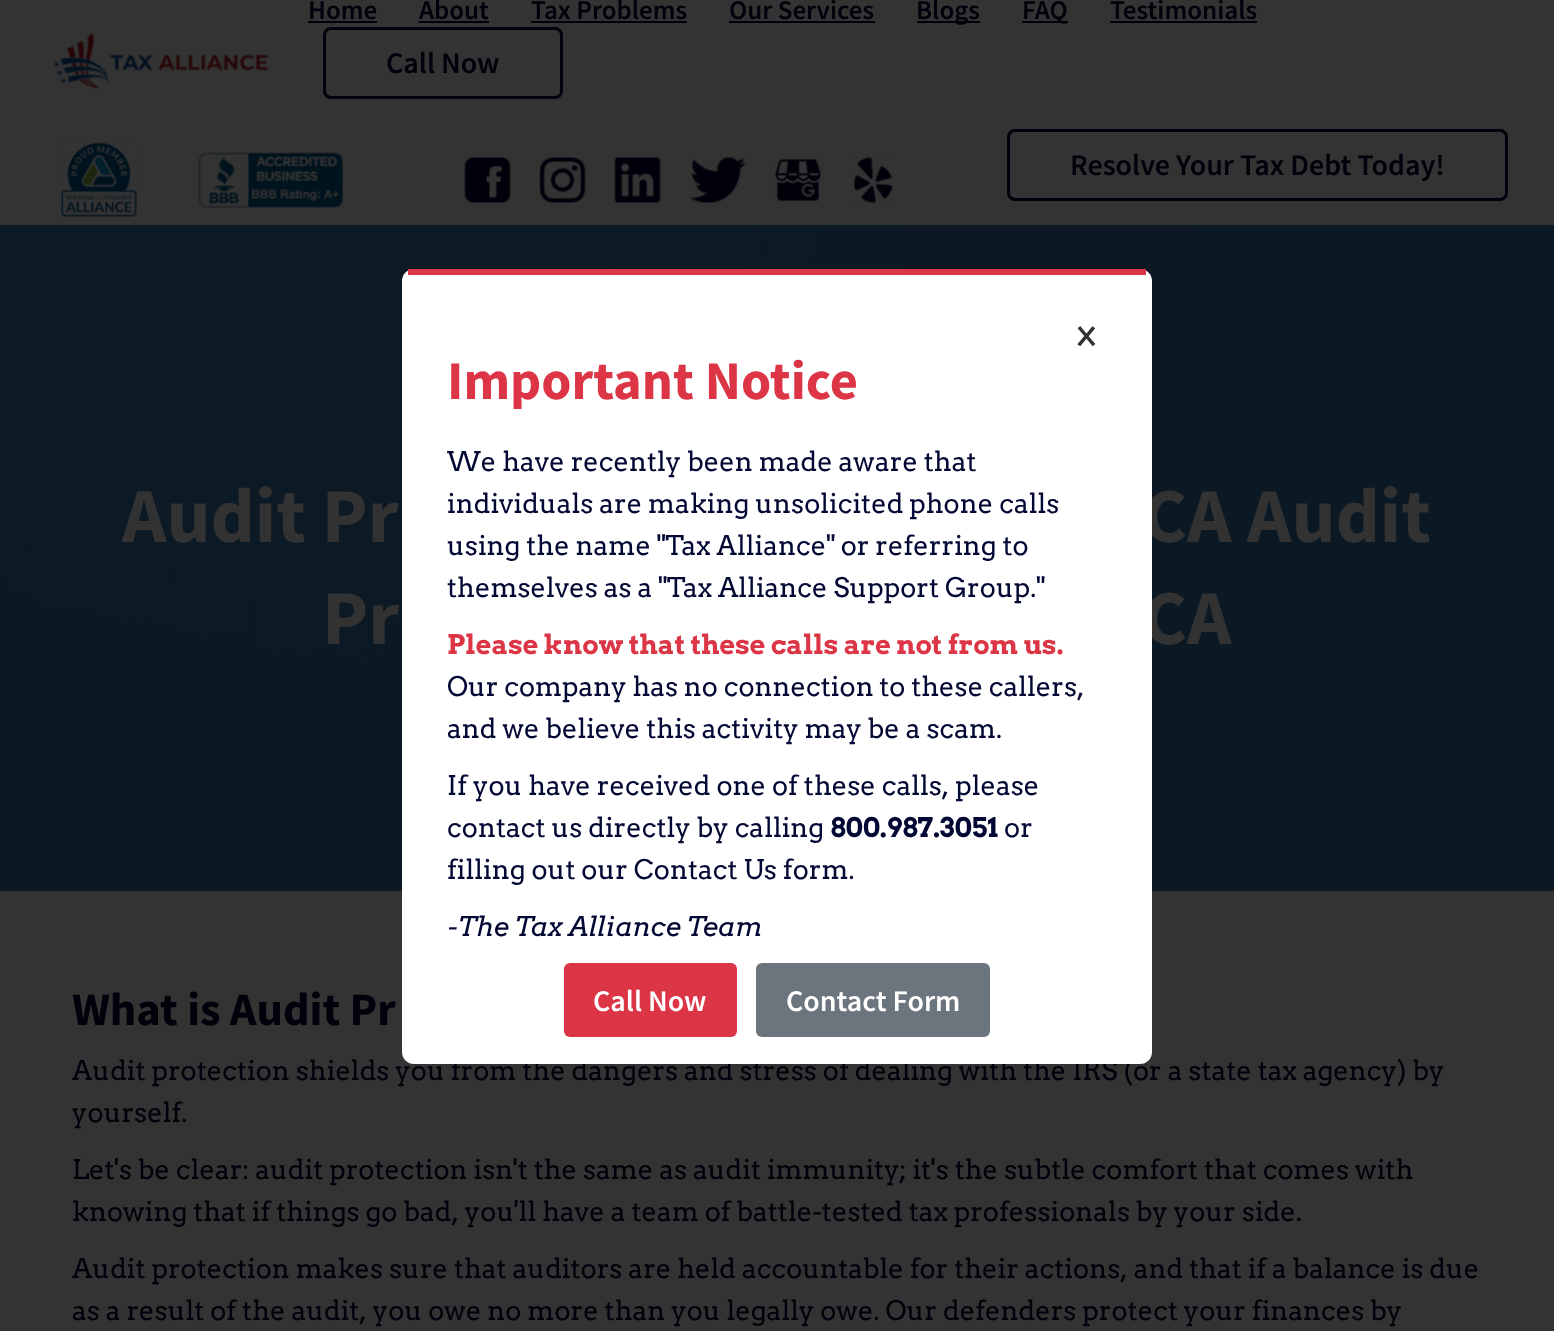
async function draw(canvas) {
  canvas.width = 1554
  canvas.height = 1331
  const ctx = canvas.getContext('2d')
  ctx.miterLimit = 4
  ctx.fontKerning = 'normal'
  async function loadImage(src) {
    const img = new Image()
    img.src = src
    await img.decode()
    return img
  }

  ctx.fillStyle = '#333'
  ctx.fillRect(0, 0, 1554, 1331)
  ctx.drawImage(await loadImage('image0.png'), 53, 32, 216, 57)
  ctx.font = '600 27px Source Sans Pro'
  ctx.fillStyle = '#00010a'
  ctx.fillText('Home', 308, 19)
  ctx.fillRect(308, 21, 69, 2)
  ctx.fillText('About', 419, 19)
  ctx.fillRect(419, 21, 70, 2)
  ctx.fillText('Tax Problems', 531, 19)
  ctx.fillRect(531, 21, 156, 2)
  ctx.fillText('Our Services', 729, 19)
  ctx.fillRect(729, 21, 146, 2)
  ctx.fillRect(917, 21, 63, 2)
  ctx.fillText('Blogs', 916, 19)
  ctx.fillRect(1022, 21, 46, 2)
  ctx.fillText('FAQ', 1022, 19)
  ctx.fillText('Testimonials', 1110, 19)
  ctx.fillRect(1110, 21, 147, 2)
  ctx.beginPath()
  ctx.roundRect(324.5, 28.5, 237, 69, 6.5)
  ctx.strokeStyle = '#00010a'
  ctx.lineWidth = 3
  ctx.stroke()
  ctx.font = '600 30px Source Sans Pro'
  ctx.fillText('Call Now', 386, 73)
  ctx.drawImage(await loadImage('image1.png'), 61, 142, 76, 76)
  ctx.drawImage(await loadImage('image2.png'), 167, 143, 207, 75)
  ctx.drawImage(await loadImage('image3.png'), 464, 157, 47, 46)
  ctx.drawImage(await loadImage('image4.png'), 539, 157, 47, 46)
  ctx.drawImage(await loadImage('image5.png'), 614, 157, 47, 46)
  ctx.drawImage(await loadImage('image6.png'), 689, 157, 57, 46)
  ctx.drawImage(await loadImage('image7.png'), 775, 158, 46, 44)
  ctx.drawImage(await loadImage('image8.png'), 851, 157, 45, 46)
  ctx.beginPath()
  ctx.roundRect(1008.5, 130.5, 498, 69, 6.5)
  ctx.stroke()
  ctx.fillText('Resolve Your Tax Debt Today!', 1070, 175)
  ctx.drawImage(await loadImage('image9.png'), 0, 225, 1554, 666)
  ctx.font = 'bold 77.5px Source Sans Pro'
  ctx.fillStyle = '#323232'
  ctx.fillText('CA Audit', 1142, 542)
  ctx.fillText('CA', 1142, 644)
  ctx.font = '27px Arvo'
  ctx.fillStyle = '#00010a'
  ctx.fillText('Audit protection shields you from the dangers and stress of dealing with the IRS (or a state tax agency) by', 72, 1080)
  ctx.fillStyle = '#fff'
  ctx.beginPath()
  ctx.roundRect(402, 269, 750, 795, 12)
  ctx.fill()
  ctx.fillStyle = '#dc3545'
  ctx.fillRect(408, 269, 738, 6)
  ctx.font = '36px Arvo'
  ctx.fillStyle = '#323232'
  ctx.fillText('×', 1075, 348)
  ctx.font = 'bold 54.5px Source Sans Pro'
  ctx.fillStyle = '#dc3545'
  ctx.fillText('Important Notice', 447, 399)
  ctx.font = '27px Arvo'
  ctx.fillStyle = '#020733'
  ctx.fillText('We have recently been made aware that', 447, 471)
  ctx.fillText('individuals are making unsolicited phone calls', 447, 513)
  ctx.fillText('using the name "Tax Alliance" or referring to', 447, 555)
  ctx.fillText('themselves as a "Tax Alliance Support Group."', 447, 597)
  ctx.font = 'bold 27px Arvo'
  ctx.fillStyle = '#dc3545'
  ctx.fillText('Please know that these calls are not from us.', 447, 654)
  ctx.wordSpacing = '-0.25px'
  ctx.font = '27px Arvo'
  ctx.fillStyle = '#020733'
  ctx.fillText('Our company has no connection to these callers,', 447, 696)
  ctx.wordSpacing = '0px'
  ctx.fillText('and we believe this activity may be a scam.', 447, 738)
  ctx.fillText('If you have received one of these calls, please', 447, 795)
  ctx.fillText('contact us directly by calling', 447, 837)
  ctx.font = 'bold 27px Arvo'
  ctx.fillText('800.987.3051', 830, 837)
  ctx.font = '27px Arvo'
  ctx.fillText('or', 1004, 837)
  ctx.fillText('filling out our Contact Us form.', 447, 879)
  ctx.font = 'italic 27px Arvo'
  ctx.fillText('-The Tax Alliance Team', 447, 936)
  ctx.fillStyle = '#dc3545'
  ctx.beginPath()
  ctx.roundRect(564, 963, 173, 74, 6)
  ctx.fill()
  ctx.font = '600 30px Source Sans Pro'
  ctx.fillStyle = '#fff'
  ctx.fillText('Call Now', 593, 1011)
  ctx.fillStyle = '#6c757d'
  ctx.beginPath()
  ctx.roundRect(756, 963, 234, 74, 6)
  ctx.fill()
  ctx.fillStyle = '#fff'
  ctx.fillText('Contact Form', 786, 1011)
  ctx.font = 'bold 77.5px Source Sans Pro'
  ctx.fillStyle = '#323232'
  ctx.fillText('Audit Pr', 122, 542)
  ctx.fillText('Pr', 322, 644)
  ctx.font = 'bold 46.5px Source Sans Pro'
  ctx.fillStyle = '#00010a'
  ctx.fillText('What is Audit Pr', 72, 1025)
  ctx.font = '27px Arvo'
  ctx.fillText('yourself.', 72, 1122)
  ctx.fillText('Let\'s be clear: audit protection isn\'t the same as audit immunity; it\'s the subtle comfort that comes with', 72, 1179)
  ctx.fillText('knowing that if things go bad, you\'ll have a team of battle-tested tax professionals by your side.', 72, 1221)
  ctx.fillText('Audit protection makes sure that auditors are held accountable for their actions, and that if a balance is due', 72, 1278)
  ctx.fillText('as a result of the audit, you owe no more than you legally owe. Our defenders protect your finances by', 72, 1320)
}

draw(document.querySelector('canvas'))
